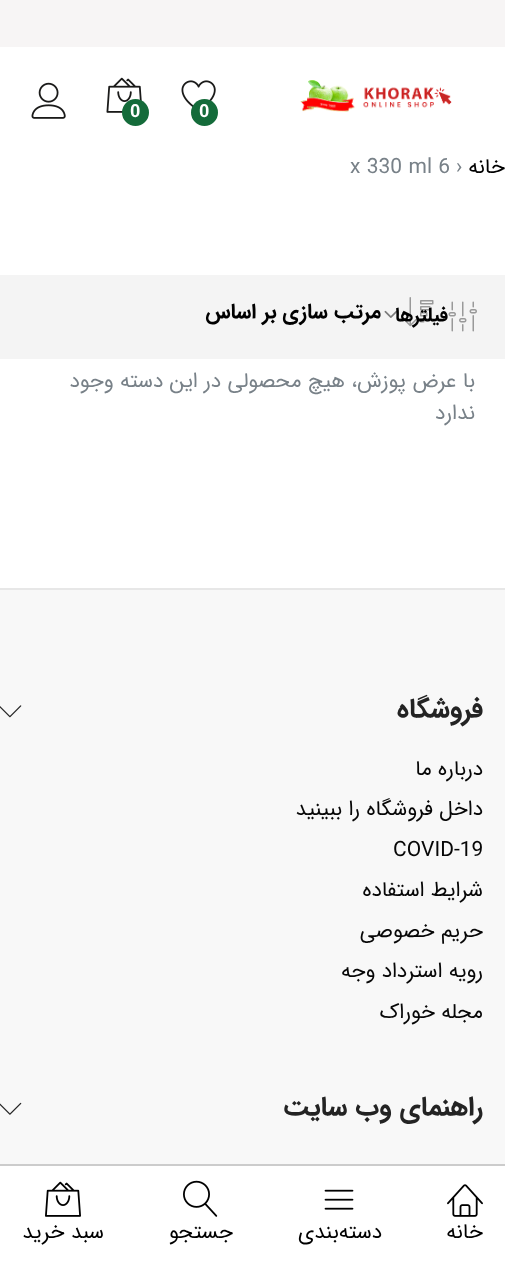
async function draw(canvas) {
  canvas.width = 505
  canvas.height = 1263
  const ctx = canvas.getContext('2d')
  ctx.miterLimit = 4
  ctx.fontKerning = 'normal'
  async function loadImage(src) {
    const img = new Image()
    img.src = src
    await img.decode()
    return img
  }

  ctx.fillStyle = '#fff'
  ctx.fillRect(0, 0, 505, 1263)
  ctx.fillStyle = '#f7f5f5'
  ctx.fillRect(0, 0, 505, 47)
  ctx.drawImage(await loadImage('image0.png'), 300, 80, 152, 32)
  ctx.drawImage(await loadImage('image1.png'), 181, 80, 35, 28)
  ctx.fillStyle = '#146b3a'
  ctx.beginPath()
  ctx.arc(204.5, 112.5, 13.5, 0, 2 * Math.PI)
  ctx.fill()
  ctx.font = 'bold 18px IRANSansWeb'
  ctx.fillStyle = '#fff'
  ctx.fillText('0', 199, 117)
  ctx.drawImage(await loadImage('image2.png'), 106, 77, 36, 36)
  ctx.fillStyle = '#146b3a'
  ctx.beginPath()
  ctx.arc(135.5, 112.5, 13.5, 0, 2 * Math.PI)
  ctx.fill()
  ctx.fillStyle = '#fff'
  ctx.fillText('0', 130, 117)
  ctx.drawImage(await loadImage('image3.png'), 31, 82, 35, 37)
  ctx.direction = 'rtl'
  ctx.font = '21px IRANSansWeb'
  ctx.fillStyle = '#000'
  ctx.fillText('خانه', 505, 173)
  ctx.direction = 'ltr'
  ctx.fillStyle = '#788188'
  ctx.fillText('›', 456, 173)
  ctx.fillText('x 330 ml 6', 350, 173)
  ctx.fillStyle = '#f4f4f4'
  ctx.fillRect(0, 275, 505, 84)
  ctx.drawImage(await loadImage('image4.png'), 448, 301, 29, 31)
  ctx.drawImage(await loadImage('image5.png'), 403, 297, 31, 30)
  ctx.direction = 'rtl'
  ctx.font = 'bold 19.5px IRANSansWeb'
  ctx.fillStyle = '#000'
  ctx.fillText('فیلترها', 448, 321)
  ctx.drawImage(await loadImage('image6.png'), 384, 310, 13, 8)
  ctx.font = 'bold 21px IRANSansWeb'
  ctx.fillText('مرتب سازی بر اساس', 381, 318)
  ctx.font = '21px IRANSansWeb'
  ctx.fillStyle = '#788188'
  ctx.fillText('با عرض پوزش، هیچ محصولی در این دسته وجود', 475, 387)
  ctx.fillText('ندارد', 475, 419)
  ctx.fillStyle = '#f8f8f8'
  ctx.fillRect(0, 590, 505, 574)
  ctx.fillStyle = '#e7e7e7'
  ctx.fillRect(0, 588, 505, 2)
  ctx.font = 'bold 27px IRANSansWeb'
  ctx.fillStyle = '#232323'
  ctx.fillText('فروشگاه', 483, 717)
  ctx.drawImage(await loadImage('image7.png'), 0, 705, 22, 13)
  ctx.font = '21px IRANSansWeb'
  ctx.fillStyle = '#070707'
  ctx.fillText('درباره ما', 483, 775)
  ctx.fillText('داخل فروشگاه را ببینید', 483, 815)
  ctx.direction = 'ltr'
  ctx.fillText('COVID-19', 393, 856)
  ctx.direction = 'rtl'
  ctx.fillText('شرایط استفاده', 483, 896)
  ctx.fillText('حریم خصوصی', 483, 937)
  ctx.fillText('رویه استرداد وجه', 483, 977)
  ctx.fillText('مجله خوراک', 483, 1018)
  ctx.font = 'bold 27px IRANSansWeb'
  ctx.fillStyle = '#232323'
  ctx.fillText('راهنمای وب سایت', 483, 1115)
  ctx.drawImage(await loadImage('image8.png'), 0, 1102, 22, 13)
  ctx.fillStyle = '#ccc'
  ctx.fillRect(0, 1164, 505, 2)
  ctx.drawImage(await loadImage('image9.png'), 447, 1184, 36, 33)
  ctx.font = '21px IRANSansWeb'
  ctx.fillStyle = '#000'
  ctx.fillText('خانه', 483, 1238)
  ctx.drawImage(await loadImage('image10.png'), 324, 1189, 30, 21)
  ctx.fillText('دسته‌بندی', 382, 1238)
  ctx.drawImage(await loadImage('image11.png'), 183, 1180, 35, 37)
  ctx.fillText('جستجو', 233, 1238)
  ctx.drawImage(await loadImage('image12.png'), 45, 1181, 36, 36)
  ctx.fillText('سبد خرید', 104, 1238)
}

draw(document.querySelector('canvas'))
